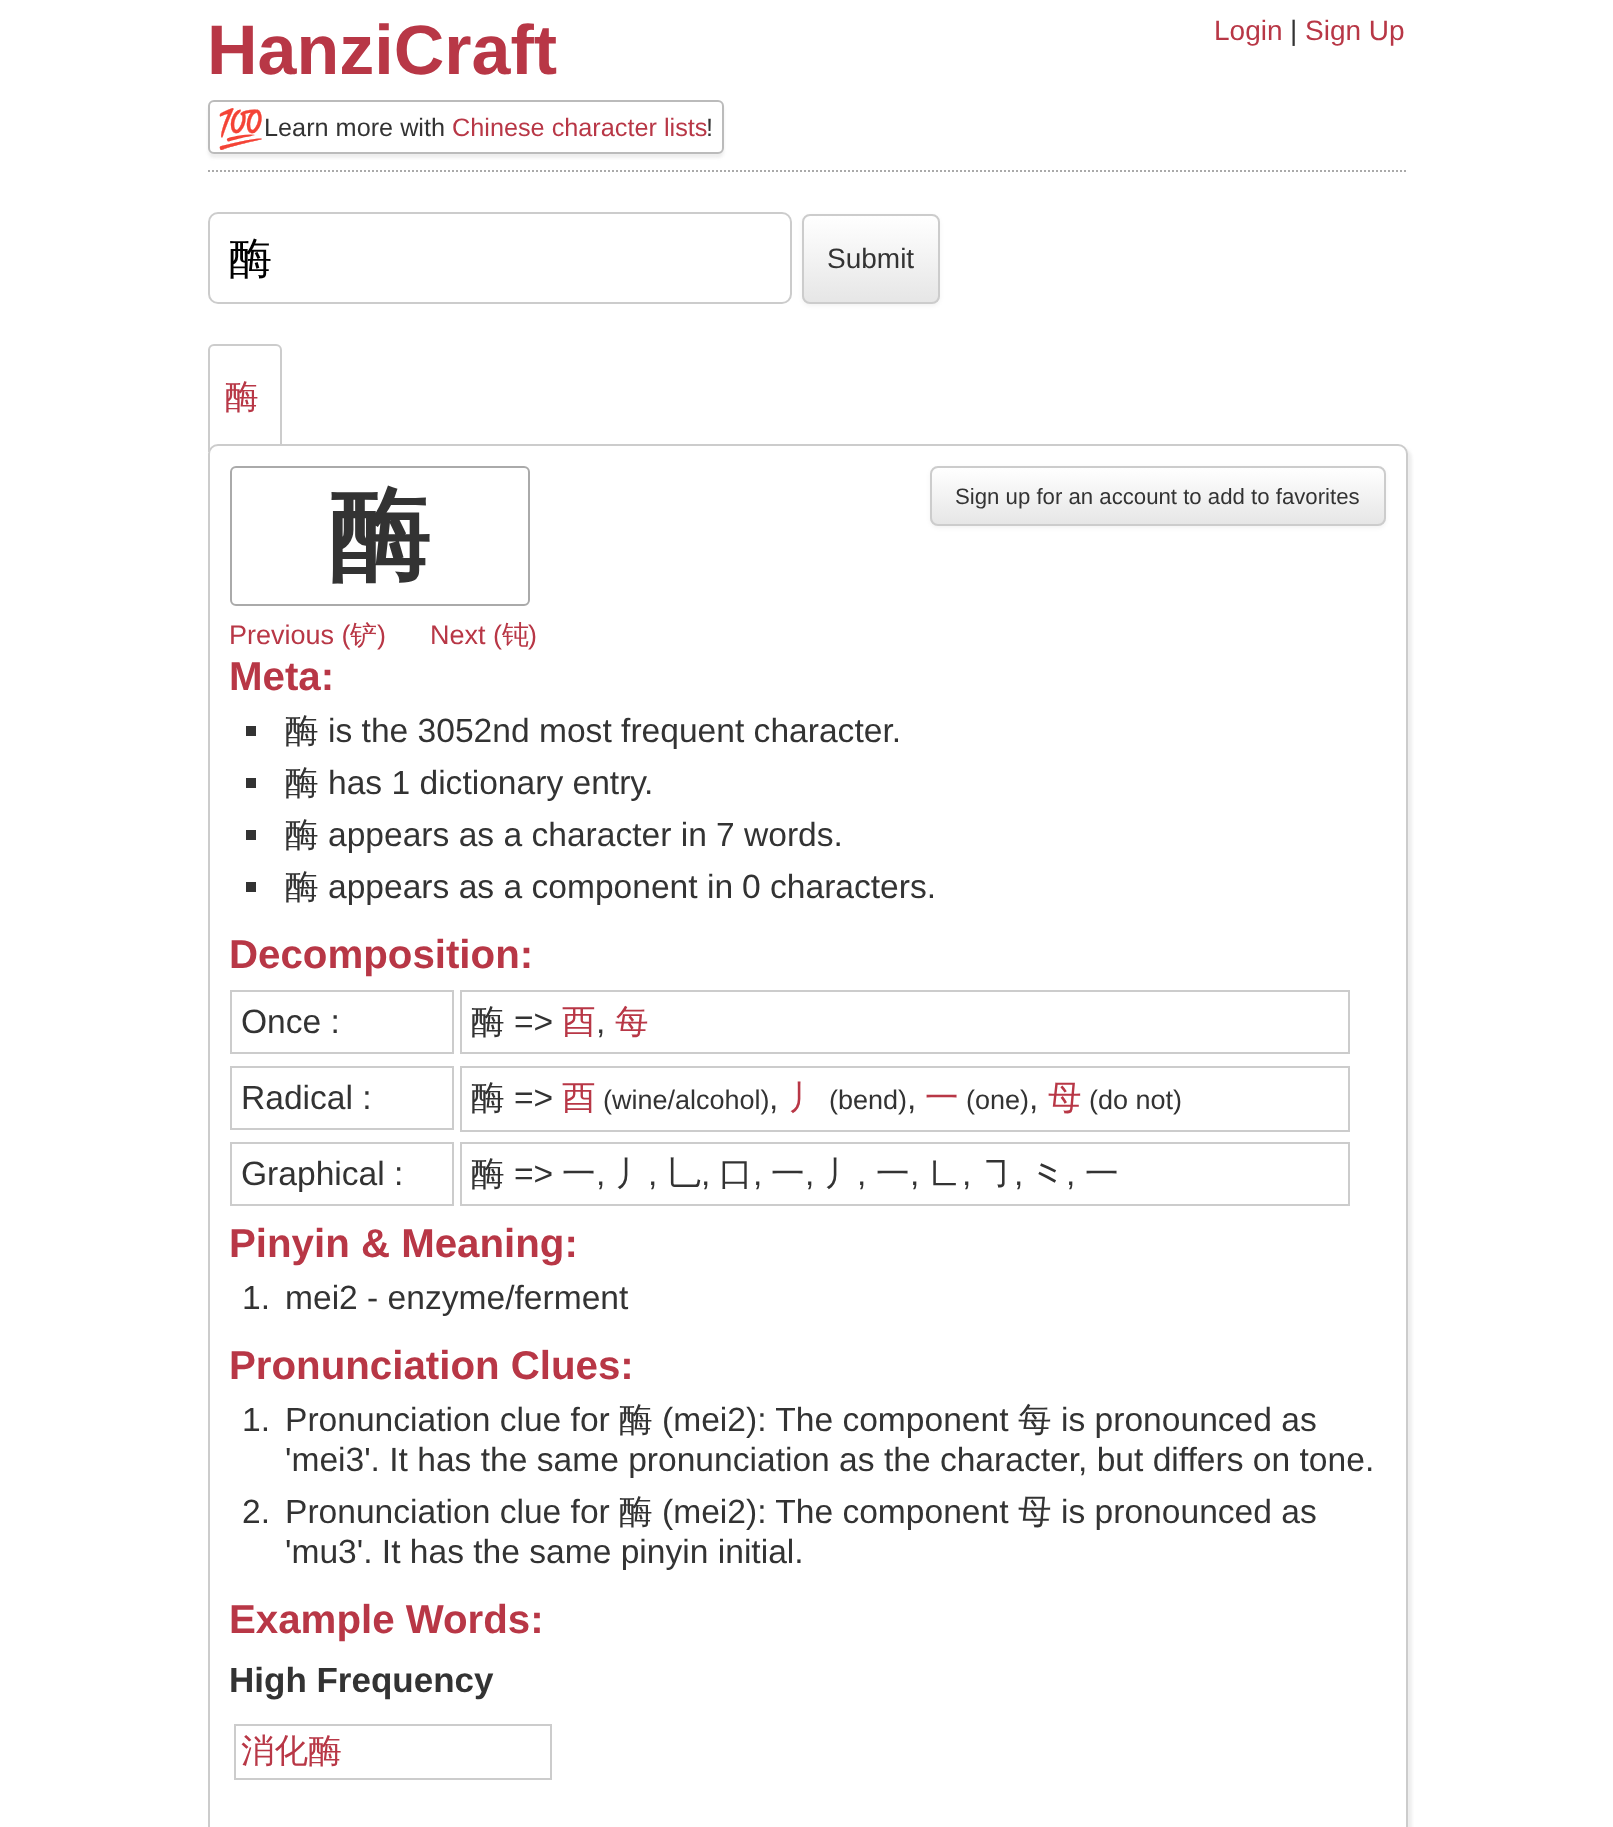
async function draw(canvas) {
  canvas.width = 1613
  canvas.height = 1827
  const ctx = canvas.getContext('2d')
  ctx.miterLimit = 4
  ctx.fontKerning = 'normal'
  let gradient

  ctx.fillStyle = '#fff'
  ctx.fillRect(0, 0, 1613, 1827)
  ctx.beginPath()
  ctx.moveTo(208, 171)
  ctx.lineTo(1408, 171)
  ctx.strokeStyle = '#aaa'
  ctx.lineWidth = 2
  ctx.setLineDash([2, 2])
  ctx.stroke()
  ctx.font = 'bold 70px Liberation Sans'
  ctx.fillStyle = '#b83746'
  ctx.fillText('HanziCraft', 207, 74)
  ctx.fillStyle = '#eee'
  ctx.filter = 'blur(1.5px)'
  ctx.beginPath()
  ctx.roundRect(208, 104, 516, 54, 6)
  ctx.fill()
  ctx.filter = 'none'
  ctx.fillStyle = '#fff'
  ctx.beginPath()
  ctx.roundRect(209, 101, 514, 52, 5)
  ctx.fill()
  ctx.strokeStyle = '#bbb'
  ctx.setLineDash([])
  ctx.stroke()
  ctx.font = '38px Noto Color Emoji'
  ctx.fillStyle = '#333'
  ctx.fillText('💯', 217, 142)
  ctx.font = '25.25px Liberation Sans'
  ctx.fillText('Learn more with', 264, 136)
  ctx.fillStyle = '#b83746'
  ctx.fillText('Chinese character lists', 452, 136)
  ctx.fillStyle = '#333'
  ctx.fillText('!', 706, 136)
  ctx.font = '28px Liberation Sans'
  ctx.fillStyle = '#b83746'
  ctx.fillText('Login', 1214, 40)
  ctx.fillStyle = '#333'
  ctx.fillText('|', 1290, 40)
  ctx.fillStyle = '#b83746'
  ctx.fillText('Sign Up', 1305, 40)
  ctx.beginPath()
  ctx.roundRect(209, 213, 582, 90, 9)
  ctx.strokeStyle = '#ccc'
  ctx.stroke()
  ctx.font = '500 43px WenQuanYi Zen Hei'
  ctx.fillStyle = '#000'
  ctx.fillText('酶', 229, 273)
  ctx.fillStyle = '#0000000d'
  ctx.filter = 'blur(2px)'
  ctx.beginPath()
  ctx.roundRect(802, 216, 138, 90, 8)
  ctx.fill()
  ctx.filter = 'none'
  ctx.save()
  ctx.beginPath()
  ctx.roundRect(802, 214, 138, 90, 8)
  ctx.clip()
  gradient = ctx.createLinearGradient(871, 216, 871, 302)
  gradient.addColorStop(0, '#fff')
  gradient.addColorStop(1, '#e6e6e6')
  ctx.fillStyle = gradient
  ctx.fillRect(802, 216, 138, 86)
  ctx.restore()
  ctx.beginPath()
  ctx.roundRect(803, 215, 136, 88, 7)
  ctx.stroke()
  ctx.font = '28px Liberation Sans'
  ctx.fillStyle = '#333'
  ctx.fillText('Submit', 827, 268)
  ctx.beginPath()
  ctx.roundRect(209, 345, 72, 106, [5, 5, 0, 0])
  ctx.stroke()
  ctx.font = '500 33.6px WenQuanYi Zen Hei'
  ctx.fillStyle = '#b83746'
  ctx.fillText('酶', 225, 408)
  ctx.fillStyle = '#eee'
  ctx.filter = 'blur(1.5px)'
  ctx.beginPath()
  ctx.roundRect(212, 448, 1200, 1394, 10)
  ctx.fill()
  ctx.filter = 'none'
  ctx.fillStyle = '#fff'
  ctx.beginPath()
  ctx.roundRect(209, 445, 1198, 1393, 9)
  ctx.fill()
  ctx.stroke()
  ctx.fillStyle = '#0000000d'
  ctx.filter = 'blur(2px)'
  ctx.beginPath()
  ctx.roundRect(930, 468, 456, 60, 8)
  ctx.fill()
  ctx.filter = 'none'
  ctx.save()
  ctx.beginPath()
  ctx.roundRect(930, 466, 456, 60, 8)
  ctx.clip()
  gradient = ctx.createLinearGradient(1158, 468, 1158, 524)
  gradient.addColorStop(0, '#fff')
  gradient.addColorStop(1, '#e6e6e6')
  ctx.fillStyle = gradient
  ctx.fillRect(930, 468, 456, 56)
  ctx.restore()
  ctx.beginPath()
  ctx.roundRect(931, 467, 454, 58, 7)
  ctx.stroke()
  ctx.font = '22.2px Liberation Sans'
  ctx.fillStyle = '#333'
  ctx.fillText('Sign up for an account to add to favorites', 955, 504)
  ctx.beginPath()
  ctx.roundRect(231, 467, 298, 138, 5)
  ctx.strokeStyle = '#aaa'
  ctx.stroke()
  ctx.font = 'bold 101px WenQuanYi Zen Hei'
  ctx.fillText('酶', 329, 570)
  ctx.font = '27px Liberation Sans'
  ctx.fillStyle = '#b83746'
  ctx.fillText('Previous (', 229, 644)
  ctx.font = '500 27px WenQuanYi Zen Hei'
  ctx.fillText('铲', 350, 644)
  ctx.font = '27px Liberation Sans'
  ctx.fillText(')', 377, 644)
  ctx.fillText('Next (', 430, 644)
  ctx.font = '500 27px WenQuanYi Zen Hei'
  ctx.fillText('钝', 502, 644)
  ctx.font = '27px Liberation Sans'
  ctx.fillText(')', 528, 644)
  ctx.font = 'bold 40.25px Liberation Sans'
  ctx.fillText('Meta:', 229, 690)
  ctx.fillStyle = '#333'
  ctx.fillRect(246, 726, 10, 10)
  ctx.font = '500 33.6px WenQuanYi Zen Hei'
  ctx.fillText('酶', 285, 742)
  ctx.font = '33.6px Liberation Sans'
  ctx.fillText('is the 3052nd most frequent character.', 328, 742)
  ctx.fillRect(246, 778, 10, 10)
  ctx.font = '500 33.6px WenQuanYi Zen Hei'
  ctx.fillText('酶', 285, 794)
  ctx.font = '33.6px Liberation Sans'
  ctx.fillText('has 1 dictionary entry', 328, 794)
  ctx.fillText('.', 644, 794)
  ctx.fillRect(246, 830, 10, 10)
  ctx.font = '500 33.6px WenQuanYi Zen Hei'
  ctx.fillText('酶', 285, 846)
  ctx.font = '33.6px Liberation Sans'
  ctx.fillText('appears as a character in', 328, 846)
  ctx.fillText('7 words.', 716, 846)
  ctx.fillRect(246, 882, 10, 10)
  ctx.font = '500 33.6px WenQuanYi Zen Hei'
  ctx.fillText('酶', 285, 898)
  ctx.font = '33.6px Liberation Sans'
  ctx.fillText('appears as a component in', 328, 898)
  ctx.fillText('0 characters.', 742, 898)
  ctx.font = 'bold 40.25px Liberation Sans'
  ctx.fillStyle = '#b83746'
  ctx.fillText('Decomposition:', 229, 968)
  ctx.strokeStyle = '#ccc'
  ctx.strokeRect(231, 991, 222, 62)
  ctx.font = '33.6px Liberation Sans'
  ctx.fillStyle = '#333'
  ctx.fillText('Once :', 241, 1033)
  ctx.strokeRect(461, 991, 888, 62)
  ctx.font = '500 33.6px WenQuanYi Zen Hei'
  ctx.fillText('酶', 471, 1033)
  ctx.font = '33.6px Liberation Sans'
  ctx.fillText('=>', 514, 1033)
  ctx.font = '500 33.6px WenQuanYi Zen Hei'
  ctx.fillStyle = '#b83746'
  ctx.fillText('酉', 562, 1033)
  ctx.fillText('每', 615, 1033)
  ctx.font = '33.6px Liberation Sans'
  ctx.fillStyle = '#333'
  ctx.fillText(',', 596, 1033)
  ctx.strokeRect(231, 1067, 222, 62)
  ctx.fillText('Radical :', 241, 1109)
  ctx.strokeRect(461, 1067, 888, 64)
  ctx.font = '500 33.6px WenQuanYi Zen Hei'
  ctx.fillText('酶', 471, 1109)
  ctx.font = '33.6px Liberation Sans'
  ctx.fillText('=>', 514, 1109)
  ctx.font = '500 33.6px WenQuanYi Zen Hei'
  ctx.fillStyle = '#b83746'
  ctx.fillText('酉', 562, 1109)
  ctx.font = '27px Liberation Sans'
  ctx.fillStyle = '#333'
  ctx.fillText('(wine/alcohol)', 603, 1109)
  ctx.font = '500 33.6px WenQuanYi Zen Hei'
  ctx.fillStyle = '#b83746'
  ctx.fillText('丿', 788, 1109)
  ctx.font = '27px Liberation Sans'
  ctx.fillStyle = '#333'
  ctx.fillText('(bend)', 829, 1109)
  ctx.font = '500 33.6px WenQuanYi Zen Hei'
  ctx.fillStyle = '#b83746'
  ctx.fillText('一', 925, 1109)
  ctx.font = '27px Liberation Sans'
  ctx.fillStyle = '#333'
  ctx.fillText('(one)', 966, 1109)
  ctx.font = '500 33.6px WenQuanYi Zen Hei'
  ctx.fillStyle = '#b83746'
  ctx.fillText('母', 1048, 1109)
  ctx.font = '27px Liberation Sans'
  ctx.fillStyle = '#333'
  ctx.fillText('(do not)', 1089, 1109)
  ctx.font = '33.6px Liberation Sans'
  ctx.fillText(',', 769, 1109)
  ctx.fillText(',', 907, 1109)
  ctx.fillText(',', 1029, 1109)
  ctx.strokeRect(231, 1143, 222, 62)
  ctx.fillText('Graphical :', 241, 1185)
  ctx.strokeRect(461, 1143, 888, 62)
  ctx.font = '500 33.6px WenQuanYi Zen Hei'
  ctx.fillText('酶', 471, 1185)
  ctx.font = '33.6px Liberation Sans'
  ctx.fillText('=>', 514, 1185)
  ctx.font = '500 33.6px WenQuanYi Zen Hei'
  ctx.fillText('一', 562, 1185)
  ctx.fillText('丿', 615, 1185)
  ctx.fillText('乚', 667, 1185)
  ctx.fillText('口', 719, 1185)
  ctx.fillText('一', 771, 1185)
  ctx.fillText('丿', 824, 1185)
  ctx.fillText('一', 876, 1185)
  ctx.fillText('㇗', 928, 1185)
  ctx.fillText('㇆', 980, 1185)
  ctx.fillText('⺀', 1033, 1185)
  ctx.fillText('一', 1085, 1185)
  ctx.font = '33.6px Liberation Sans'
  ctx.fillText(',', 596, 1185)
  ctx.fillText(',', 648, 1185)
  ctx.fillText(',', 701, 1185)
  ctx.fillText(',', 753, 1185)
  ctx.fillText(',', 805, 1185)
  ctx.fillText(',', 857, 1185)
  ctx.fillText(',', 910, 1185)
  ctx.fillText(',', 962, 1185)
  ctx.fillText(',', 1014, 1185)
  ctx.fillText(',', 1066, 1185)
  ctx.font = 'bold 40.25px Liberation Sans'
  ctx.fillStyle = '#b83746'
  ctx.fillText('Pinyin & Meaning:', 229, 1257)
  ctx.font = '33.6px Liberation Sans'
  ctx.fillStyle = '#333'
  ctx.fillText('1.', 242, 1309)
  ctx.fillText('mei2 - enzyme/ferment', 285, 1309)
  ctx.font = 'bold 40.25px Liberation Sans'
  ctx.fillStyle = '#b83746'
  ctx.fillText('Pronunciation Clues:', 229, 1379)
  ctx.font = '33.6px Liberation Sans'
  ctx.fillStyle = '#333'
  ctx.fillText('1.', 242, 1431)
  ctx.fillText('Pronunciation clue for', 285, 1431)
  ctx.font = '500 33.6px WenQuanYi Zen Hei'
  ctx.fillText('酶', 619, 1431)
  ctx.font = '33.6px Liberation Sans'
  ctx.fillText('(mei2): The component', 662, 1431)
  ctx.font = '500 33.6px WenQuanYi Zen Hei'
  ctx.fillText('每', 1018, 1431)
  ctx.font = '33.6px Liberation Sans'
  ctx.fillText('is pronounced as', 1061, 1431)
  ctx.fillText('\'mei3\'. It has the same pronunciation as the character, but differs on tone.', 285, 1471)
  ctx.fillText('2.', 242, 1523)
  ctx.fillText('Pronunciation clue for', 285, 1523)
  ctx.font = '500 33.6px WenQuanYi Zen Hei'
  ctx.fillText('酶', 619, 1523)
  ctx.font = '33.6px Liberation Sans'
  ctx.fillText('(mei2): The component', 662, 1523)
  ctx.font = '500 33.6px WenQuanYi Zen Hei'
  ctx.fillText('母', 1018, 1523)
  ctx.font = '33.6px Liberation Sans'
  ctx.fillText('is pronounced as', 1061, 1523)
  ctx.fillText('\'mu3\'. It has the same pinyin initial.', 285, 1563)
  ctx.font = 'bold 40.25px Liberation Sans'
  ctx.fillStyle = '#b83746'
  ctx.fillText('Example Words:', 229, 1633)
  ctx.font = 'bold 35px Liberation Sans'
  ctx.fillStyle = '#333'
  ctx.fillText('High Frequency', 229, 1692)
  ctx.strokeRect(235, 1725, 316, 54)
  ctx.font = '500 33.6px WenQuanYi Zen Hei'
  ctx.fillStyle = '#b83746'
  ctx.fillText('消化酶', 241, 1762)
}

draw(document.querySelector('canvas'))
